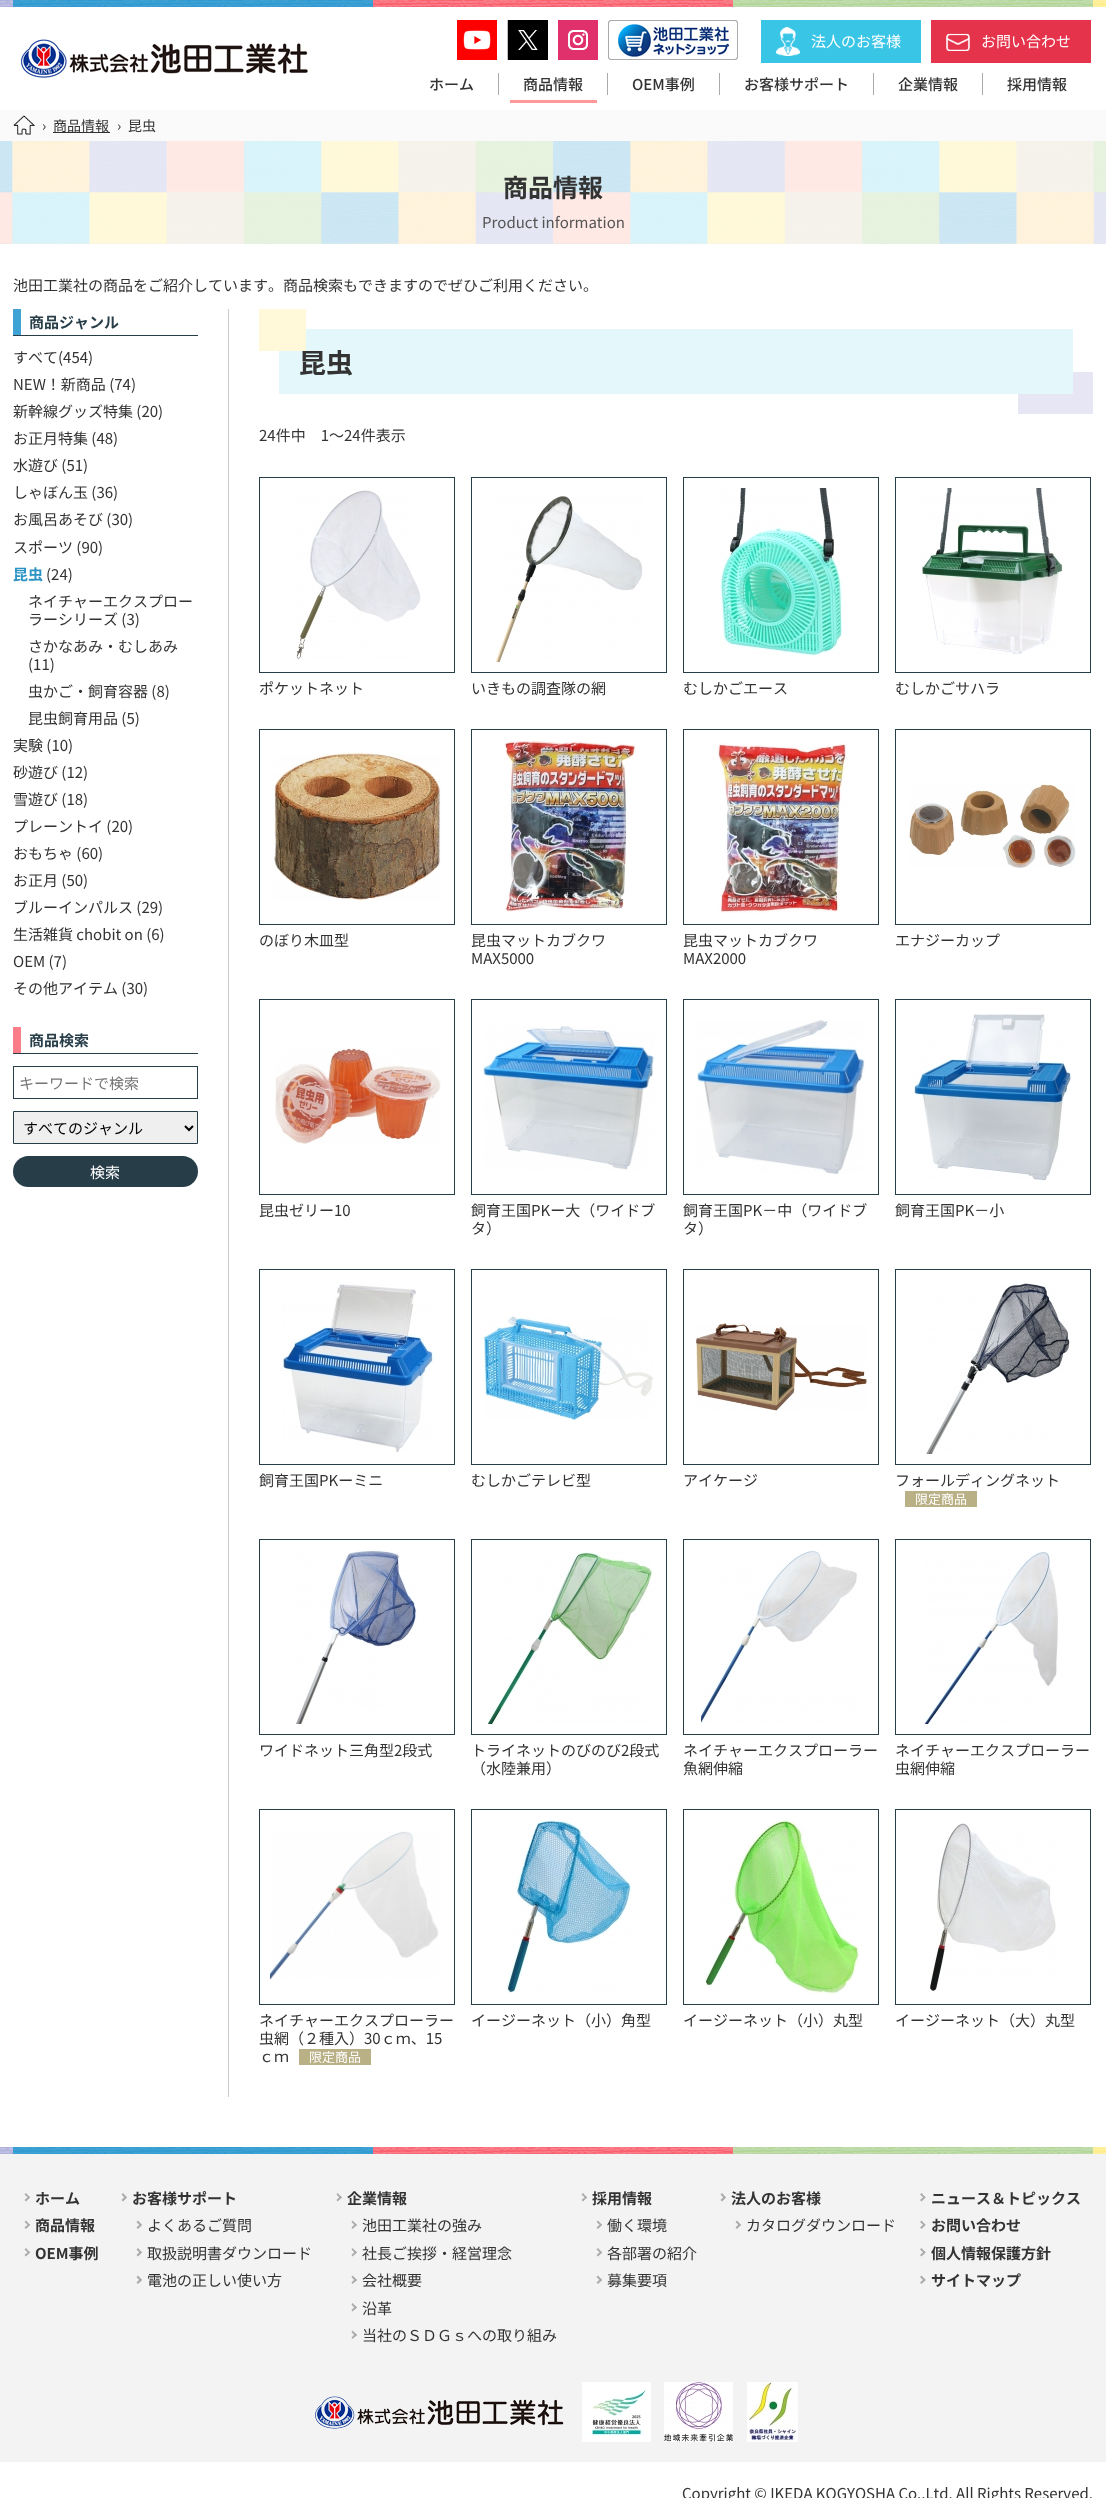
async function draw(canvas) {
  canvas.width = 1106
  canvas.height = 2498
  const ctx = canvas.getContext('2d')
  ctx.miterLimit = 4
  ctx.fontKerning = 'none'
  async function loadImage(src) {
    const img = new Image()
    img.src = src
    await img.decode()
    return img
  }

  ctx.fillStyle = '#fff'
  ctx.fillRect(0, 0, 1106, 2498)
  ctx.drawImage(await loadImage('image0.png'), 0, 0, 1106, 7)
  ctx.drawImage(await loadImage('image1.png'), 20, 39, 288, 39)
  ctx.drawImage(await loadImage('image2.png'), 457, 20, 40, 40)
  ctx.drawImage(await loadImage('image3.png'), 507, 20, 41, 40)
  ctx.drawImage(await loadImage('image4.png'), 558, 20, 40, 40)
  ctx.drawImage(await loadImage('image5.png'), 608, 20, 130, 40)
  ctx.fillStyle = '#39c5e6'
  ctx.fillRect(761, 20, 160, 43)
  ctx.drawImage(await loadImage('image6.png'), 776, 27, 24, 29)
  ctx.font = '15px Noto Sans JP'
  ctx.fillStyle = '#fff'
  ctx.fillText('法人のお客様', 811, 47)
  ctx.fillStyle = '#e4334a'
  ctx.fillRect(931, 20, 160, 43)
  ctx.drawImage(await loadImage('image7.png'), 946, 33, 24, 18)
  ctx.fillStyle = '#fff'
  ctx.fillText('お問い合わせ', 981, 47)
  ctx.font = '500 15px Noto Sans JP'
  ctx.fillStyle = '#333'
  ctx.fillText('ホーム', 429, 90)
  ctx.fillStyle = '#aaa'
  ctx.fillRect(498, 73, 1, 22)
  ctx.fillStyle = '#333'
  ctx.fillText('商品情報', 523, 90)
  ctx.fillStyle = '#f99'
  ctx.fillRect(510, 100, 87, 3)
  ctx.fillStyle = '#aaa'
  ctx.fillRect(607, 73, 1, 22)
  ctx.fillStyle = '#333'
  ctx.fillText('OEM事例', 632, 90)
  ctx.fillStyle = '#aaa'
  ctx.fillRect(719, 73, 1, 22)
  ctx.fillStyle = '#333'
  ctx.fillText('お客様サポート', 744, 90)
  ctx.fillStyle = '#aaa'
  ctx.fillRect(873, 73, 1, 22)
  ctx.fillStyle = '#333'
  ctx.fillText('企業情報', 898, 90)
  ctx.fillStyle = '#aaa'
  ctx.fillRect(982, 73, 1, 22)
  ctx.fillStyle = '#333'
  ctx.fillText('採用情報', 1007, 90)
  ctx.fillStyle = '#fafafa'
  ctx.fillRect(0, 110, 1106, 31)
  ctx.drawImage(await loadImage('image8.png'), 13, 115, 22, 20)
  ctx.font = '14px Noto Sans JP'
  ctx.fillStyle = '#333'
  ctx.fillText('›', 42, 131)
  ctx.fillRect(53, 132, 57, 1)
  ctx.fillText('商品情報', 53, 131)
  ctx.fillText('›', 117, 131)
  ctx.fillText('昆虫', 128, 131)
  ctx.drawImage(await loadImage('image9.png'), 0, 141, 1106, 103)
  ctx.font = 'bold 25px Noto Sans JP'
  ctx.fillText('商品情報', 503, 197)
  ctx.font = '15px Noto Sans JP'
  ctx.fillStyle = '#555'
  ctx.fillText('Product information', 482, 228)
  ctx.fillStyle = '#333'
  ctx.fillText('池田工業社の商品をご紹介しています。商品検索もできますのでぜひご利用ください。', 13, 291)
  ctx.fillStyle = '#ccc'
  ctx.fillRect(228, 309, 1, 1788)
  ctx.fillStyle = '#3fa2d4'
  ctx.fillRect(13, 309, 8, 26)
  ctx.font = 'bold 15px Noto Sans JP'
  ctx.fillStyle = '#273e49'
  ctx.fillText('商品ジャンル', 29, 328)
  ctx.fillRect(13, 335, 185, 1)
  ctx.font = '15px Noto Sans JP'
  ctx.fillStyle = '#333'
  ctx.fillText('すべて(454)', 13, 363)
  ctx.fillText('NEW！新商品 (74)', 13, 390)
  ctx.fillText('新幹線グッズ特集 (20)', 13, 417)
  ctx.fillText('お正月特集 (48)', 13, 444)
  ctx.fillText('水遊び (51)', 13, 471)
  ctx.fillText('しゃぼん玉 (36)', 13, 498)
  ctx.fillText('お風呂あそび (30)', 13, 525)
  ctx.fillText('スポーツ (90)', 13, 553)
  ctx.font = 'bold 15px Noto Sans JP'
  ctx.fillStyle = '#2c93c5'
  ctx.fillText('昆虫', 13, 580)
  ctx.font = '15px Noto Sans JP'
  ctx.fillStyle = '#333'
  ctx.fillText('(24)', 46, 580)
  ctx.fillText('ネイチャーエクスプロー', 28, 607)
  ctx.fillText('ラーシリーズ (3)', 28, 625)
  ctx.fillText('さかなあみ・むしあみ', 28, 652)
  ctx.fillText('(11)', 28, 670)
  ctx.fillText('虫かご・飼育容器 (8)', 28, 697)
  ctx.fillText('昆虫飼育用品 (5)', 28, 724)
  ctx.fillText('実験 (10)', 13, 751)
  ctx.fillText('砂遊び (12)', 13, 778)
  ctx.fillText('雪遊び (18)', 13, 805)
  ctx.fillText('プレーントイ (20)', 13, 832)
  ctx.fillText('おもちゃ (60)', 13, 859)
  ctx.fillText('お正月 (50)', 13, 886)
  ctx.fillText('ブルーインパルス (29)', 13, 913)
  ctx.fillText('生活雑貨 chobit on (6)', 13, 940)
  ctx.fillText('OEM (7)', 13, 967)
  ctx.fillText('その他アイテム (30)', 13, 994)
  ctx.fillStyle = '#fa7d89'
  ctx.fillRect(13, 1027, 8, 26)
  ctx.font = 'bold 15px Noto Sans JP'
  ctx.fillStyle = '#273e49'
  ctx.fillText('商品検索', 29, 1046)
  ctx.fillRect(13, 1053, 185, 1)
  ctx.strokeStyle = '#273e49'
  ctx.strokeRect(13.5, 1066.5, 184, 32)
  ctx.font = '15px Noto Sans JP'
  ctx.fillStyle = '#757575'
  ctx.fillText('キーワードで検索', 19, 1089)
  ctx.fillStyle = '#efefef'
  ctx.beginPath()
  ctx.rect(13.5, 1111.5, 184, 32)
  ctx.fill()
  ctx.stroke()
  ctx.beginPath()
  ctx.moveTo(185, 1126)
  ctx.lineTo(189, 1130)
  ctx.lineTo(193, 1126)
  ctx.strokeStyle = '#000'
  ctx.lineWidth = 2
  ctx.stroke()
  ctx.fillStyle = '#000'
  ctx.fillText('すべてのジャンル', 23, 1134)
  ctx.fillStyle = '#273e49'
  ctx.beginPath()
  ctx.roundRect(13, 1156, 185, 31, 15.5)
  ctx.fill()
  ctx.fillStyle = '#fff'
  ctx.fillText('検索', 90, 1178)
  ctx.fillStyle = '#e6e6f4'
  ctx.fillRect(1018, 372, 75, 42)
  ctx.fillStyle = '#e4f8fc'
  ctx.fillRect(279, 329, 794, 65)
  ctx.font = 'bold 27px Noto Sans JP'
  ctx.fillStyle = '#333'
  ctx.fillText('昆虫', 299, 373)
  ctx.fillStyle = '#fff9d9'
  ctx.fillRect(259, 309, 47, 42)
  ctx.font = '15px Noto Sans JP'
  ctx.fillStyle = '#333'
  ctx.fillText('24件中 1～24件表示', 259, 441)
  ctx.strokeStyle = '#273e49'
  ctx.lineWidth = 1
  ctx.strokeRect(259.5, 477.5, 195, 195)
  ctx.drawImage(await loadImage('image10.png'), 296, 490, 125, 169)
  ctx.fillText('ポケットネット', 259, 694)
  ctx.strokeRect(471.5, 477.5, 195, 195)
  ctx.drawImage(await loadImage('image11.png'), 495, 496, 148, 166)
  ctx.fillText('いきもの調査隊の網', 471, 694)
  ctx.strokeRect(683.5, 477.5, 195, 195)
  ctx.drawImage(await loadImage('image12.png'), 720, 488, 123, 169)
  ctx.fillText('むしかごエース', 683, 694)
  ctx.strokeRect(895.5, 477.5, 195, 195)
  ctx.drawImage(await loadImage('image13.png'), 921, 488, 142, 166)
  ctx.fillText('むしかごサハラ', 895, 694)
  ctx.strokeRect(259.5, 729.5, 195, 195)
  ctx.drawImage(await loadImage('image14.png'), 274, 752, 167, 149)
  ctx.fillText('のぼり木皿型', 259, 946)
  ctx.strokeRect(471.5, 729.5, 195, 195)
  ctx.drawImage(await loadImage('image15.png'), 504, 741, 132, 172)
  ctx.fillText('昆虫マットカブクワ', 471, 946)
  ctx.fillText('MAX5000', 471, 964)
  ctx.strokeRect(683.5, 729.5, 195, 195)
  ctx.drawImage(await loadImage('image16.png'), 717, 743, 130, 170)
  ctx.fillText('昆虫マットカブクワ', 683, 946)
  ctx.fillText('MAX2000', 683, 964)
  ctx.strokeRect(895.5, 729.5, 195, 195)
  ctx.drawImage(await loadImage('image17.png'), 908, 783, 168, 85)
  ctx.fillText('エナジーカップ', 895, 946)
  ctx.strokeRect(259.5, 999.5, 195, 195)
  ctx.drawImage(await loadImage('image18.png'), 275, 1048, 166, 96)
  ctx.fillText('昆虫ゼリー10', 259, 1216)
  ctx.strokeRect(471.5, 999.5, 195, 195)
  ctx.drawImage(await loadImage('image19.png'), 483, 1026, 171, 144)
  ctx.fillText('飼育王国PKー大（ワイドブ', 471, 1216)
  ctx.fillText('タ）', 471, 1234)
  ctx.strokeRect(683.5, 999.5, 195, 195)
  ctx.drawImage(await loadImage('image20.png'), 697, 1020, 168, 154)
  ctx.fillText('飼育王国PK－中（ワイドブ', 683, 1216)
  ctx.fillText('タ）', 683, 1234)
  ctx.strokeRect(895.5, 999.5, 195, 195)
  ctx.drawImage(await loadImage('image21.png'), 913, 1014, 158, 167)
  ctx.fillText('飼育王国PK－小', 895, 1216)
  ctx.strokeRect(259.5, 1269.5, 195, 195)
  ctx.drawImage(await loadImage('image22.png'), 282, 1284, 152, 168)
  ctx.fillText('飼育王国PKーミニ', 259, 1486)
  ctx.strokeRect(471.5, 1269.5, 195, 195)
  ctx.drawImage(await loadImage('image23.png'), 483, 1316, 171, 104)
  ctx.fillText('むしかごテレビ型', 471, 1486)
  ctx.strokeRect(683.5, 1269.5, 195, 195)
  ctx.drawImage(await loadImage('image24.png'), 695, 1323, 173, 88)
  ctx.fillText('アイケージ', 683, 1486)
  ctx.strokeRect(895.5, 1269.5, 195, 195)
  ctx.drawImage(await loadImage('image25.png'), 926, 1283, 144, 171)
  ctx.fillText('フォールディングネット', 895, 1486)
  ctx.fillStyle = '#b9b085'
  ctx.fillRect(905, 1491, 72, 16)
  ctx.font = '13px Noto Sans JP'
  ctx.fillStyle = '#fff'
  ctx.fillText('限定商品', 915, 1504)
  ctx.strokeRect(259.5, 1539.5, 195, 195)
  ctx.drawImage(await loadImage('image26.png'), 296, 1550, 121, 174)
  ctx.font = '15px Noto Sans JP'
  ctx.fillStyle = '#333'
  ctx.fillText('ワイドネット三角型2段式', 259, 1756)
  ctx.strokeRect(471.5, 1539.5, 195, 195)
  ctx.drawImage(await loadImage('image27.png'), 487, 1551, 166, 173)
  ctx.fillText('トライネットのびのび2段式', 471, 1756)
  ctx.fillText('（水陸兼用）', 471, 1774)
  ctx.strokeRect(683.5, 1539.5, 195, 195)
  ctx.drawImage(await loadImage('image28.png'), 701, 1550, 156, 174)
  ctx.fillText('ネイチャーエクスプローラー', 683, 1756)
  ctx.fillText('魚網伸縮', 683, 1774)
  ctx.strokeRect(895.5, 1539.5, 195, 195)
  ctx.drawImage(await loadImage('image29.png'), 924, 1551, 134, 173)
  ctx.fillText('ネイチャーエクスプローラー', 895, 1756)
  ctx.fillText('虫網伸縮', 895, 1774)
  ctx.strokeRect(259.5, 1809.5, 195, 195)
  ctx.drawImage(await loadImage('image30.png'), 270, 1831, 169, 149)
  ctx.fillText('ネイチャーエクスプローラー', 259, 2026)
  ctx.fillText('虫網（２種入）30ｃｍ、15', 259, 2044)
  ctx.fillText('ｃｍ', 259, 2062)
  ctx.fillStyle = '#b9b085'
  ctx.fillRect(299, 2049, 72, 16)
  ctx.font = '13px Noto Sans JP'
  ctx.fillStyle = '#fff'
  ctx.fillText('限定商品', 309, 2062)
  ctx.strokeRect(471.5, 1809.5, 195, 195)
  ctx.drawImage(await loadImage('image31.png'), 507, 1820, 125, 173)
  ctx.font = '15px Noto Sans JP'
  ctx.fillStyle = '#333'
  ctx.fillText('イージーネット（小）角型', 471, 2026)
  ctx.strokeRect(683.5, 1809.5, 195, 195)
  ctx.drawImage(await loadImage('image32.png'), 705, 1820, 154, 174)
  ctx.fillText('イージーネット（小）丸型', 683, 2026)
  ctx.strokeRect(895.5, 1809.5, 195, 195)
  ctx.drawImage(await loadImage('image33.png'), 930, 1823, 126, 168)
  ctx.fillText('イージーネット（大）丸型', 895, 2026)
  ctx.fillStyle = '#f3f3f3'
  ctx.fillRect(0, 2154, 1106, 308)
  ctx.drawImage(await loadImage('image0.png'), 0, 2147, 1106, 7)
  ctx.fillStyle = '#aaa'
  ctx.beginPath()
  ctx.moveTo(26, 2193)
  ctx.lineTo(30, 2197.5)
  ctx.lineTo(29, 2198.5)
  ctx.lineTo(24.5, 2194.5)
  ctx.closePath()
  ctx.fill()
  ctx.beginPath()
  ctx.moveTo(29, 2196)
  ctx.lineTo(30, 2197.5)
  ctx.lineTo(26, 2201.5)
  ctx.lineTo(24.5, 2200)
  ctx.closePath()
  ctx.fill()
  ctx.font = 'bold 15px Noto Sans JP'
  ctx.fillStyle = '#333'
  ctx.fillText('ホーム', 35, 2204)
  ctx.fillStyle = '#aaa'
  ctx.beginPath()
  ctx.moveTo(26, 2220.5)
  ctx.lineTo(30, 2225)
  ctx.lineTo(29, 2226)
  ctx.lineTo(24.5, 2222)
  ctx.closePath()
  ctx.fill()
  ctx.beginPath()
  ctx.moveTo(29, 2223.5)
  ctx.lineTo(30, 2225)
  ctx.lineTo(26, 2229)
  ctx.lineTo(24.5, 2227.5)
  ctx.closePath()
  ctx.fill()
  ctx.fillStyle = '#333'
  ctx.fillText('商品情報', 35, 2231)
  ctx.fillStyle = '#aaa'
  ctx.beginPath()
  ctx.moveTo(26, 2248)
  ctx.lineTo(30, 2252.5)
  ctx.lineTo(29, 2253.5)
  ctx.lineTo(24.5, 2249.5)
  ctx.closePath()
  ctx.fill()
  ctx.beginPath()
  ctx.moveTo(29, 2251)
  ctx.lineTo(30, 2252.5)
  ctx.lineTo(26, 2256.5)
  ctx.lineTo(24.5, 2255)
  ctx.closePath()
  ctx.fill()
  ctx.fillStyle = '#333'
  ctx.fillText('OEM事例', 35, 2259)
  ctx.fillStyle = '#aaa'
  ctx.beginPath()
  ctx.moveTo(123, 2193)
  ctx.lineTo(127, 2197.5)
  ctx.lineTo(125.5, 2198.5)
  ctx.lineTo(121.5, 2194.5)
  ctx.closePath()
  ctx.fill()
  ctx.beginPath()
  ctx.moveTo(125.5, 2196)
  ctx.lineTo(127, 2197.5)
  ctx.lineTo(123, 2201.5)
  ctx.lineTo(121.5, 2200)
  ctx.closePath()
  ctx.fill()
  ctx.fillStyle = '#333'
  ctx.fillText('お客様サポート', 132, 2204)
  ctx.fillStyle = '#aaa'
  ctx.beginPath()
  ctx.moveTo(138, 2220.5)
  ctx.lineTo(142, 2225)
  ctx.lineTo(140.5, 2226)
  ctx.lineTo(136.5, 2222)
  ctx.closePath()
  ctx.fill()
  ctx.beginPath()
  ctx.moveTo(140.5, 2223.5)
  ctx.lineTo(142, 2225)
  ctx.lineTo(138, 2229)
  ctx.lineTo(136.5, 2227.5)
  ctx.closePath()
  ctx.fill()
  ctx.font = '15px Noto Sans JP'
  ctx.fillStyle = '#333'
  ctx.fillText('よくあるご質問', 147, 2231)
  ctx.fillStyle = '#aaa'
  ctx.beginPath()
  ctx.moveTo(138, 2248)
  ctx.lineTo(142, 2252.5)
  ctx.lineTo(140.5, 2253.5)
  ctx.lineTo(136.5, 2249.5)
  ctx.closePath()
  ctx.fill()
  ctx.beginPath()
  ctx.moveTo(140.5, 2251)
  ctx.lineTo(142, 2252.5)
  ctx.lineTo(138, 2256.5)
  ctx.lineTo(136.5, 2255)
  ctx.closePath()
  ctx.fill()
  ctx.fillStyle = '#333'
  ctx.fillText('取扱説明書ダウンロード', 147, 2259)
  ctx.fillStyle = '#aaa'
  ctx.beginPath()
  ctx.moveTo(138, 2275.5)
  ctx.lineTo(142, 2280)
  ctx.lineTo(140.5, 2281.5)
  ctx.lineTo(136.5, 2277)
  ctx.closePath()
  ctx.fill()
  ctx.beginPath()
  ctx.moveTo(140.5, 2278.5)
  ctx.lineTo(142, 2280)
  ctx.lineTo(138, 2284)
  ctx.lineTo(136.5, 2282.5)
  ctx.closePath()
  ctx.fill()
  ctx.fillStyle = '#333'
  ctx.fillText('電池の正しい使い方', 147, 2286)
  ctx.fillStyle = '#aaa'
  ctx.beginPath()
  ctx.moveTo(337.5, 2193)
  ctx.lineTo(342, 2197.5)
  ctx.lineTo(340.5, 2198.5)
  ctx.lineTo(336.5, 2194.5)
  ctx.closePath()
  ctx.fill()
  ctx.beginPath()
  ctx.moveTo(340.5, 2196)
  ctx.lineTo(342, 2197.5)
  ctx.lineTo(337.5, 2201.5)
  ctx.lineTo(336.5, 2200)
  ctx.closePath()
  ctx.fill()
  ctx.font = 'bold 15px Noto Sans JP'
  ctx.fillStyle = '#333'
  ctx.fillText('企業情報', 347, 2204)
  ctx.fillStyle = '#aaa'
  ctx.beginPath()
  ctx.moveTo(352.5, 2220.5)
  ctx.lineTo(357, 2225)
  ctx.lineTo(355.5, 2226)
  ctx.lineTo(351.5, 2222)
  ctx.closePath()
  ctx.fill()
  ctx.beginPath()
  ctx.moveTo(355.5, 2223.5)
  ctx.lineTo(357, 2225)
  ctx.lineTo(352.5, 2229)
  ctx.lineTo(351.5, 2227.5)
  ctx.closePath()
  ctx.fill()
  ctx.font = '15px Noto Sans JP'
  ctx.fillStyle = '#333'
  ctx.fillText('池田工業社の強み', 362, 2231)
  ctx.fillStyle = '#aaa'
  ctx.beginPath()
  ctx.moveTo(352.5, 2248)
  ctx.lineTo(357, 2252.5)
  ctx.lineTo(355.5, 2253.5)
  ctx.lineTo(351.5, 2249.5)
  ctx.closePath()
  ctx.fill()
  ctx.beginPath()
  ctx.moveTo(355.5, 2251)
  ctx.lineTo(357, 2252.5)
  ctx.lineTo(352.5, 2256.5)
  ctx.lineTo(351.5, 2255)
  ctx.closePath()
  ctx.fill()
  ctx.fillStyle = '#333'
  ctx.fillText('社長ご挨拶・経営理念', 362, 2259)
  ctx.fillStyle = '#aaa'
  ctx.beginPath()
  ctx.moveTo(352.5, 2275.5)
  ctx.lineTo(357, 2280)
  ctx.lineTo(355.5, 2281.5)
  ctx.lineTo(351.5, 2277)
  ctx.closePath()
  ctx.fill()
  ctx.beginPath()
  ctx.moveTo(355.5, 2278.5)
  ctx.lineTo(357, 2280)
  ctx.lineTo(352.5, 2284)
  ctx.lineTo(351.5, 2282.5)
  ctx.closePath()
  ctx.fill()
  ctx.fillStyle = '#333'
  ctx.fillText('会社概要', 362, 2286)
  ctx.fillStyle = '#aaa'
  ctx.beginPath()
  ctx.moveTo(352.5, 2303)
  ctx.lineTo(357, 2307.5)
  ctx.lineTo(355.5, 2309)
  ctx.lineTo(351.5, 2304.5)
  ctx.closePath()
  ctx.fill()
  ctx.beginPath()
  ctx.moveTo(355.5, 2306)
  ctx.lineTo(357, 2307.5)
  ctx.lineTo(352.5, 2311.5)
  ctx.lineTo(351.5, 2310)
  ctx.closePath()
  ctx.fill()
  ctx.fillStyle = '#333'
  ctx.fillText('沿革', 362, 2314)
  ctx.fillStyle = '#aaa'
  ctx.beginPath()
  ctx.moveTo(352.5, 2330.5)
  ctx.lineTo(357, 2335)
  ctx.lineTo(355.5, 2336.5)
  ctx.lineTo(351.5, 2332)
  ctx.closePath()
  ctx.fill()
  ctx.beginPath()
  ctx.moveTo(355.5, 2333.5)
  ctx.lineTo(357, 2335)
  ctx.lineTo(352.5, 2339)
  ctx.lineTo(351.5, 2337.5)
  ctx.closePath()
  ctx.fill()
  ctx.fillStyle = '#333'
  ctx.fillText('当社のＳＤＧｓへの取り組み', 362, 2341)
  ctx.fillStyle = '#aaa'
  ctx.beginPath()
  ctx.moveTo(583, 2193)
  ctx.lineTo(587, 2197.5)
  ctx.lineTo(586, 2198.5)
  ctx.lineTo(581.5, 2194.5)
  ctx.closePath()
  ctx.fill()
  ctx.beginPath()
  ctx.moveTo(586, 2196)
  ctx.lineTo(587, 2197.5)
  ctx.lineTo(583, 2201.5)
  ctx.lineTo(581.5, 2200)
  ctx.closePath()
  ctx.fill()
  ctx.font = 'bold 15px Noto Sans JP'
  ctx.fillStyle = '#333'
  ctx.fillText('採用情報', 592, 2204)
  ctx.fillStyle = '#aaa'
  ctx.beginPath()
  ctx.moveTo(598, 2220.5)
  ctx.lineTo(602, 2225)
  ctx.lineTo(601, 2226)
  ctx.lineTo(596.5, 2222)
  ctx.closePath()
  ctx.fill()
  ctx.beginPath()
  ctx.moveTo(601, 2223.5)
  ctx.lineTo(602, 2225)
  ctx.lineTo(598, 2229)
  ctx.lineTo(596.5, 2227.5)
  ctx.closePath()
  ctx.fill()
  ctx.font = '15px Noto Sans JP'
  ctx.fillStyle = '#333'
  ctx.fillText('働く環境', 607, 2231)
  ctx.fillStyle = '#aaa'
  ctx.beginPath()
  ctx.moveTo(598, 2248)
  ctx.lineTo(602, 2252.5)
  ctx.lineTo(601, 2253.5)
  ctx.lineTo(596.5, 2249.5)
  ctx.closePath()
  ctx.fill()
  ctx.beginPath()
  ctx.moveTo(601, 2251)
  ctx.lineTo(602, 2252.5)
  ctx.lineTo(598, 2256.5)
  ctx.lineTo(596.5, 2255)
  ctx.closePath()
  ctx.fill()
  ctx.fillStyle = '#333'
  ctx.fillText('各部署の紹介', 607, 2259)
  ctx.fillStyle = '#aaa'
  ctx.beginPath()
  ctx.moveTo(598, 2275.5)
  ctx.lineTo(602, 2280)
  ctx.lineTo(601, 2281.5)
  ctx.lineTo(596.5, 2277)
  ctx.closePath()
  ctx.fill()
  ctx.beginPath()
  ctx.moveTo(601, 2278.5)
  ctx.lineTo(602, 2280)
  ctx.lineTo(598, 2284)
  ctx.lineTo(596.5, 2282.5)
  ctx.closePath()
  ctx.fill()
  ctx.fillStyle = '#333'
  ctx.fillText('募集要項', 607, 2286)
  ctx.fillStyle = '#aaa'
  ctx.beginPath()
  ctx.moveTo(722, 2193)
  ctx.lineTo(726, 2197.5)
  ctx.lineTo(724.5, 2198.5)
  ctx.lineTo(720.5, 2194.5)
  ctx.closePath()
  ctx.fill()
  ctx.beginPath()
  ctx.moveTo(724.5, 2196)
  ctx.lineTo(726, 2197.5)
  ctx.lineTo(722, 2201.5)
  ctx.lineTo(720.5, 2200)
  ctx.closePath()
  ctx.fill()
  ctx.font = 'bold 15px Noto Sans JP'
  ctx.fillStyle = '#333'
  ctx.fillText('法人のお客様', 731, 2204)
  ctx.fillStyle = '#aaa'
  ctx.beginPath()
  ctx.moveTo(737, 2220.5)
  ctx.lineTo(741, 2225)
  ctx.lineTo(739.5, 2226)
  ctx.lineTo(735.5, 2222)
  ctx.closePath()
  ctx.fill()
  ctx.beginPath()
  ctx.moveTo(739.5, 2223.5)
  ctx.lineTo(741, 2225)
  ctx.lineTo(737, 2229)
  ctx.lineTo(735.5, 2227.5)
  ctx.closePath()
  ctx.fill()
  ctx.font = '15px Noto Sans JP'
  ctx.fillStyle = '#333'
  ctx.fillText('カタログダウンロード', 746, 2231)
  ctx.fillStyle = '#aaa'
  ctx.beginPath()
  ctx.moveTo(921.5, 2193)
  ctx.lineTo(925.5, 2197.5)
  ctx.lineTo(924.5, 2198.5)
  ctx.lineTo(920, 2194.5)
  ctx.closePath()
  ctx.fill()
  ctx.beginPath()
  ctx.moveTo(924.5, 2196)
  ctx.lineTo(925.5, 2197.5)
  ctx.lineTo(921.5, 2201.5)
  ctx.lineTo(920, 2200)
  ctx.closePath()
  ctx.fill()
  ctx.font = 'bold 15px Noto Sans JP'
  ctx.fillStyle = '#333'
  ctx.fillText('ニュース＆トピックス', 931, 2204)
  ctx.fillStyle = '#aaa'
  ctx.beginPath()
  ctx.moveTo(921.5, 2220.5)
  ctx.lineTo(925.5, 2225)
  ctx.lineTo(924.5, 2226)
  ctx.lineTo(920, 2222)
  ctx.closePath()
  ctx.fill()
  ctx.beginPath()
  ctx.moveTo(924.5, 2223.5)
  ctx.lineTo(925.5, 2225)
  ctx.lineTo(921.5, 2229)
  ctx.lineTo(920, 2227.5)
  ctx.closePath()
  ctx.fill()
  ctx.fillStyle = '#333'
  ctx.fillText('お問い合わせ', 931, 2231)
  ctx.fillStyle = '#aaa'
  ctx.beginPath()
  ctx.moveTo(921.5, 2248)
  ctx.lineTo(925.5, 2252.5)
  ctx.lineTo(924.5, 2253.5)
  ctx.lineTo(920, 2249.5)
  ctx.closePath()
  ctx.fill()
  ctx.beginPath()
  ctx.moveTo(924.5, 2251)
  ctx.lineTo(925.5, 2252.5)
  ctx.lineTo(921.5, 2256.5)
  ctx.lineTo(920, 2255)
  ctx.closePath()
  ctx.fill()
  ctx.fillStyle = '#333'
  ctx.fillText('個人情報保護方針', 931, 2259)
  ctx.fillStyle = '#aaa'
  ctx.beginPath()
  ctx.moveTo(921.5, 2275.5)
  ctx.lineTo(925.5, 2280)
  ctx.lineTo(924.5, 2281.5)
  ctx.lineTo(920, 2277)
  ctx.closePath()
  ctx.fill()
  ctx.beginPath()
  ctx.moveTo(924.5, 2278.5)
  ctx.lineTo(925.5, 2280)
  ctx.lineTo(921.5, 2284)
  ctx.lineTo(920, 2282.5)
  ctx.closePath()
  ctx.fill()
  ctx.fillStyle = '#333'
  ctx.fillText('サイトマップ', 931, 2286)
  ctx.drawImage(await loadImage('image34.png'), 315, 2396, 249, 33)
  ctx.drawImage(await loadImage('image35.png'), 582, 2382, 69, 60)
  ctx.drawImage(await loadImage('image36.png'), 664, 2382, 69, 60)
  ctx.drawImage(await loadImage('image37.png'), 747, 2382, 51, 60)
  ctx.font = '15px Noto Sans JP'
  ctx.fillText('Copyright © IKEDA KOGYOSHA Co.,Ltd. All Rights Reserved.', 682, 2499)
}

draw(document.querySelector('canvas'))
